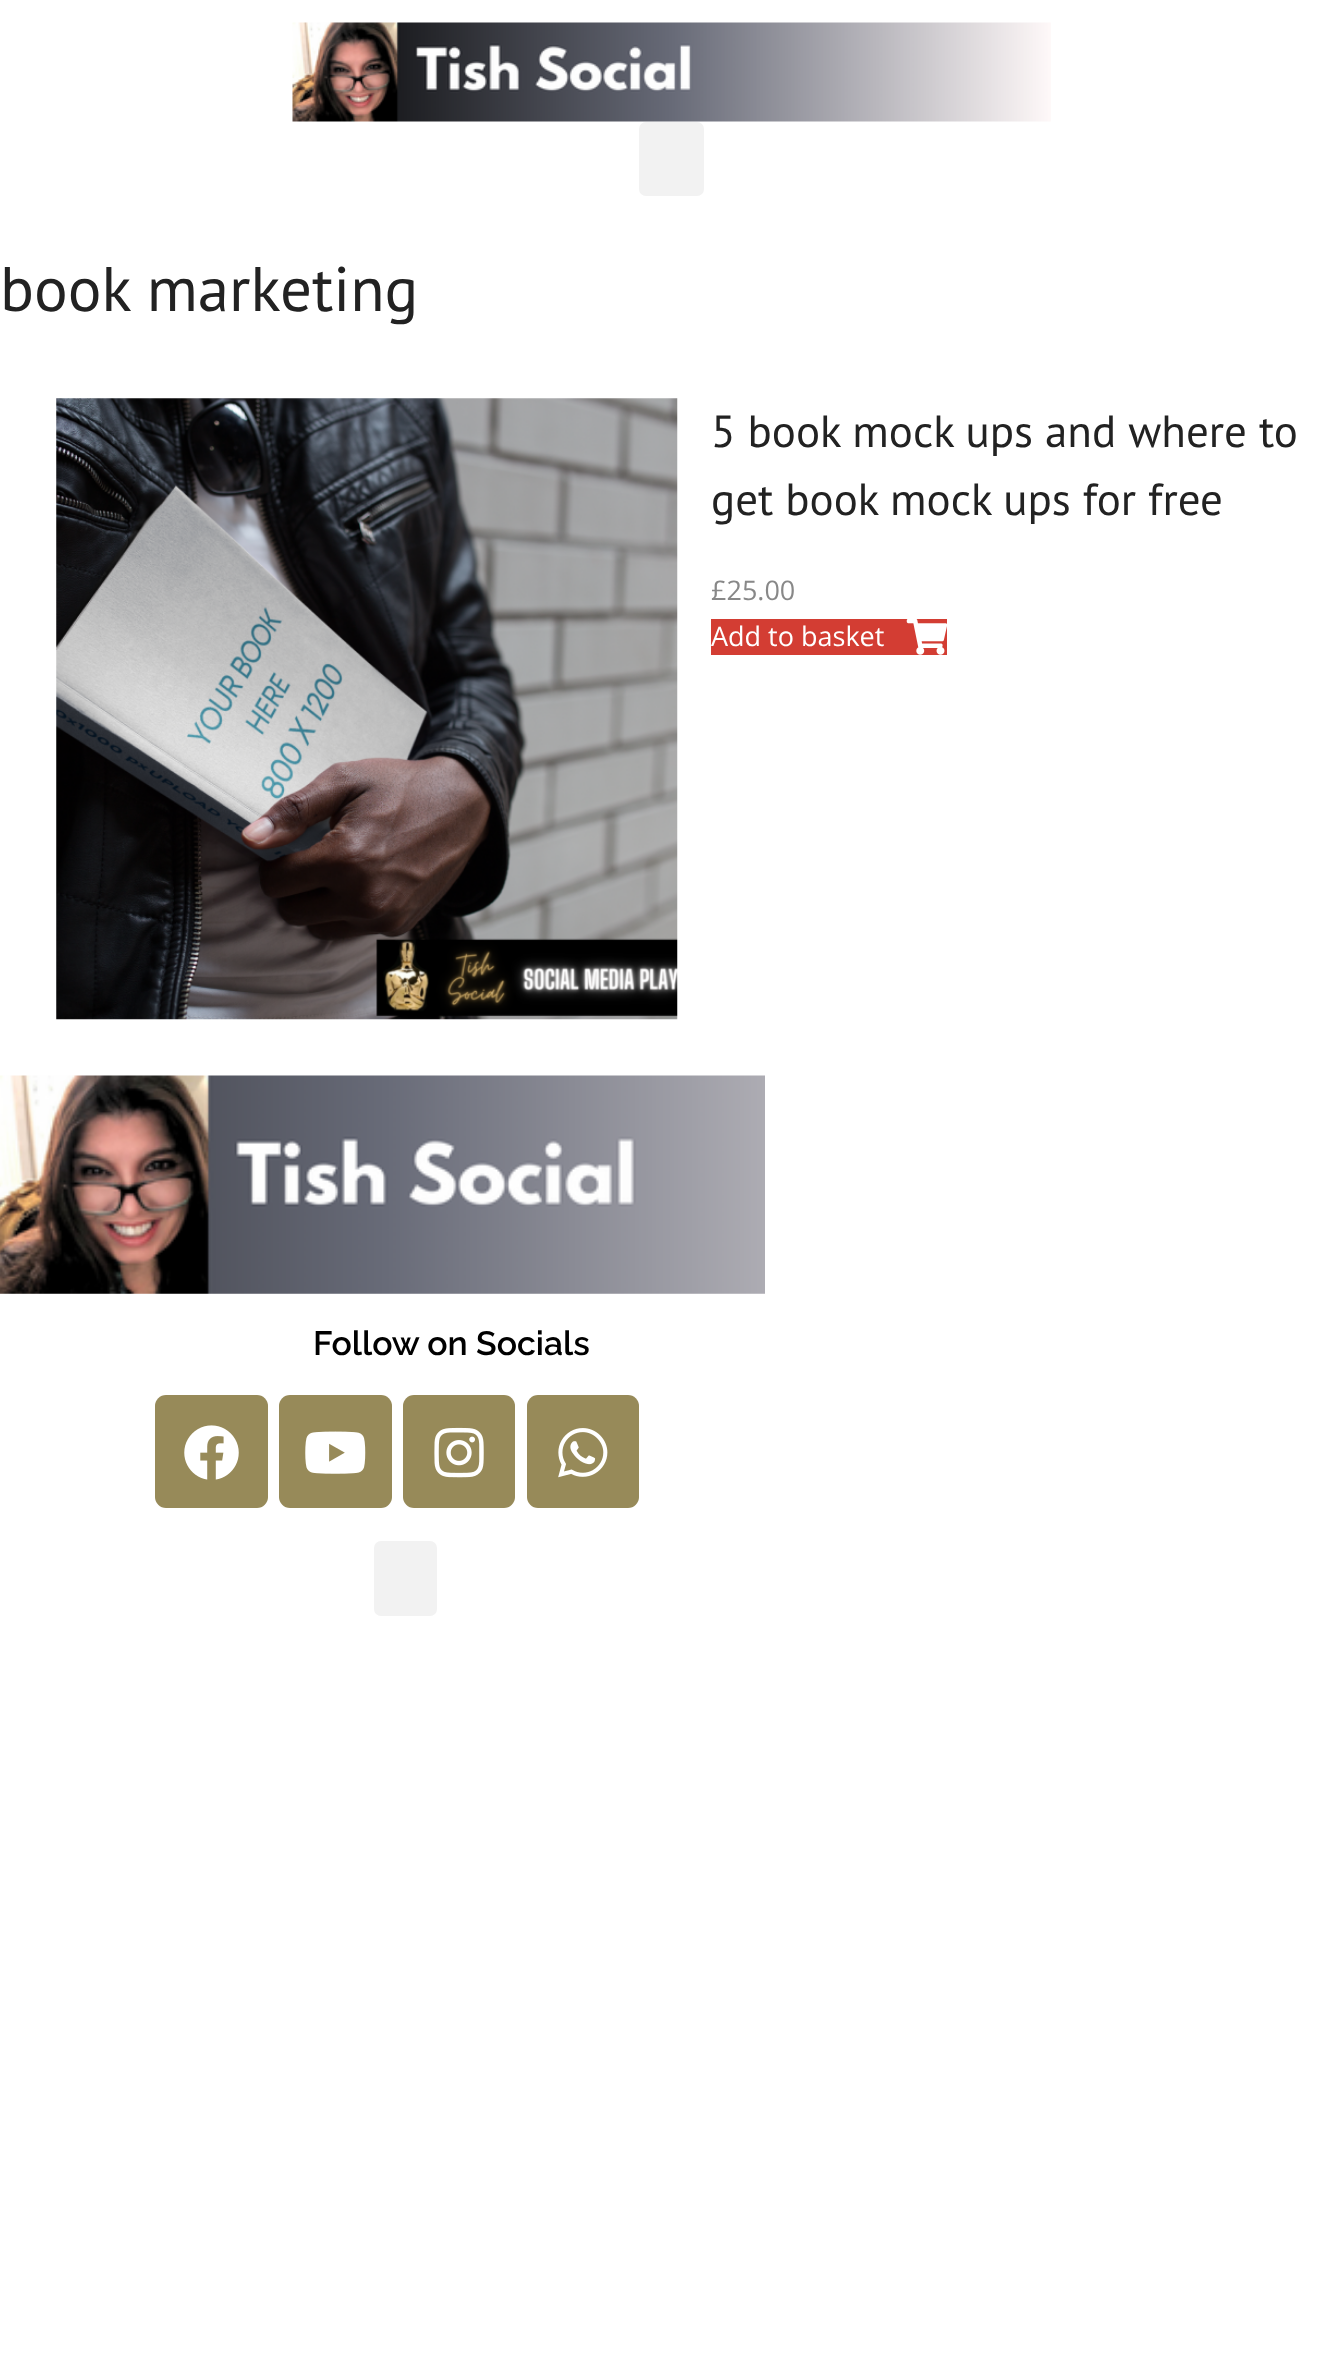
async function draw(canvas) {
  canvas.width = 1342
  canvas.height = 2355
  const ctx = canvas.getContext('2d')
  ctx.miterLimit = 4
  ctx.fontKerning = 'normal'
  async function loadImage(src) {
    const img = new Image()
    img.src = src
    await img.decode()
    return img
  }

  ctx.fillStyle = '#fff'
  ctx.fillRect(0, 0, 1342, 2355)
  ctx.drawImage(await loadImage('image0.png'), 292, 22, 759, 100)
  ctx.fillStyle = '#f2f2f2'
  ctx.beginPath()
  ctx.roundRect(639, 122, 65, 74, 7)
  ctx.fill()
  ctx.font = '63px PT Sans'
  ctx.fillStyle = '#222'
  ctx.fillText('book marketing', 0, 311)
  ctx.drawImage(await loadImage('image1.png'), 56, 398, 622, 622)
  ctx.font = '45px PT Sans'
  ctx.fillText('5 book mock ups and where to', 711, 447)
  ctx.fillText('get book mock ups for free', 711, 515)
  ctx.font = '27px Open Sans'
  ctx.fillStyle = '#888'
  ctx.fillText('£25.00', 711, 600)
  ctx.fillStyle = '#d33d33'
  ctx.fillRect(711, 619, 236, 36)
  ctx.fillStyle = '#fff'
  ctx.fillText('Add to basket', 711, 646)
  ctx.drawImage(await loadImage('image2.png'), 906, 619, 41, 36)
  ctx.drawImage(await loadImage('image3.png'), 0, 1075, 765, 219)
  ctx.font = '600 33.75px Raleway'
  ctx.fillStyle = '#000'
  ctx.fillText('Follow on Socials', 313, 1355)
  ctx.fillStyle = '#978a59'
  ctx.beginPath()
  ctx.roundRect(155, 1395, 113, 113, 11)
  ctx.fill()
  ctx.drawImage(await loadImage('image4.png'), 184, 1425, 55, 55)
  ctx.beginPath()
  ctx.roundRect(279, 1395, 113, 113, 11)
  ctx.fill()
  ctx.drawImage(await loadImage('image5.png'), 305, 1431, 61, 43)
  ctx.beginPath()
  ctx.roundRect(403, 1395, 112, 113, 11)
  ctx.fill()
  ctx.drawImage(await loadImage('image6.png'), 434, 1427, 50, 51)
  ctx.beginPath()
  ctx.roundRect(527, 1395, 112, 113, 11)
  ctx.fill()
  ctx.drawImage(await loadImage('image7.png'), 558, 1428, 50, 50)
  ctx.fillStyle = '#f2f2f2'
  ctx.beginPath()
  ctx.roundRect(374, 1541, 63, 75, 7)
  ctx.fill()
}

draw(document.querySelector('canvas'))
